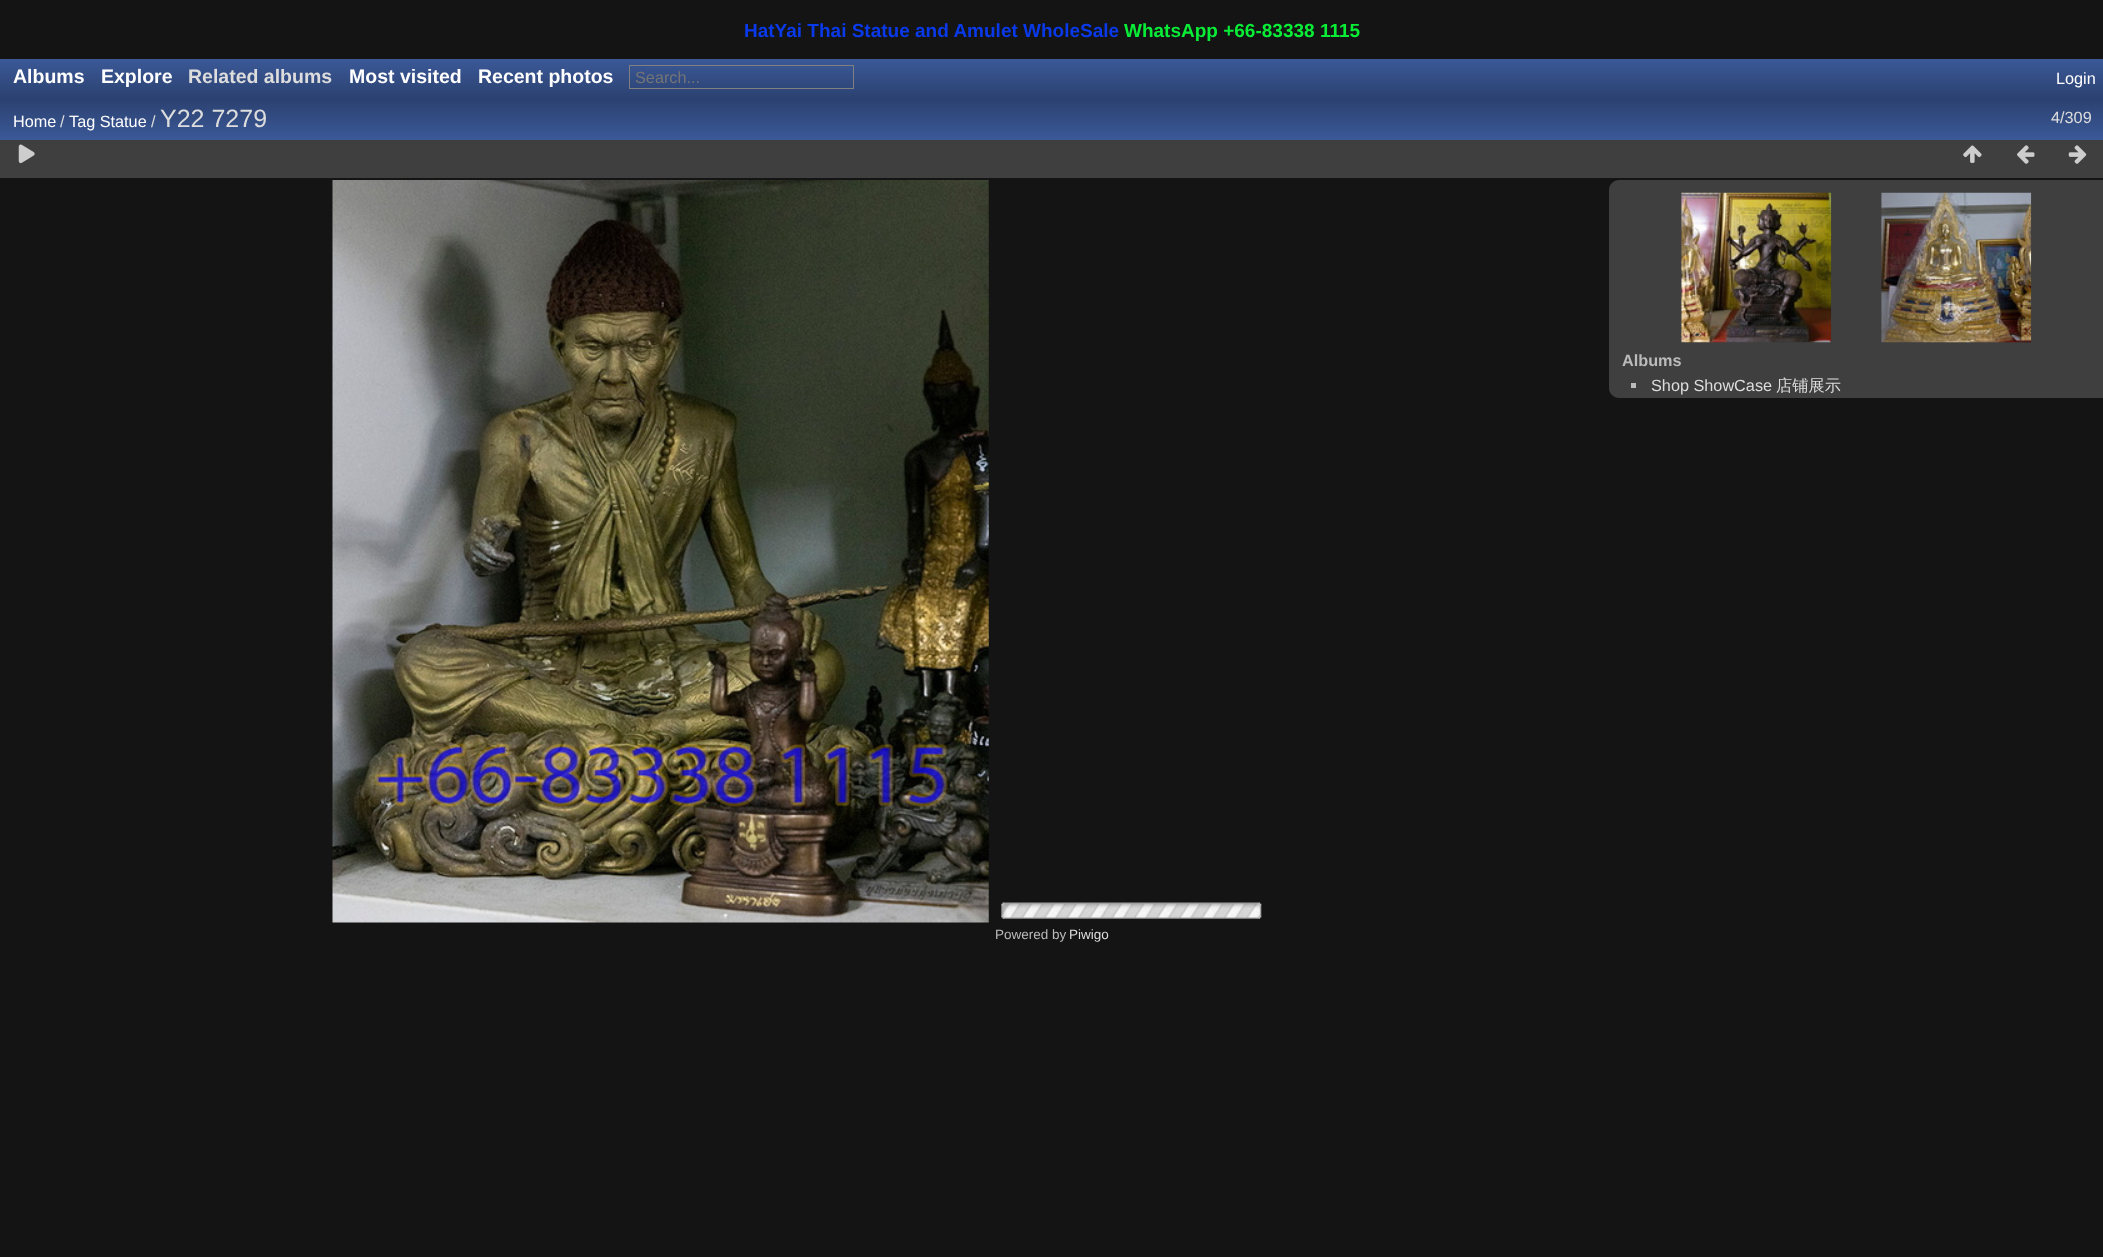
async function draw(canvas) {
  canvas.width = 2103
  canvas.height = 1257
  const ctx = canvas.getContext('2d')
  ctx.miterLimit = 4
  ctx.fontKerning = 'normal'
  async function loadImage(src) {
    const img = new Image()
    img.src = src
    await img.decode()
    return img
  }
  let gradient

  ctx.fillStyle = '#141414'
  ctx.fillRect(0, 0, 2103, 1257)
  ctx.font = 'bold 19px Liberation Sans'
  ctx.fillStyle = '#0a39ea'
  ctx.fillText('HatYai Thai Statue and Amulet WholeSale', 744, 37)
  ctx.fillStyle = '#09ed37'
  ctx.fillText('WhatsApp +66-83338 1115', 1124, 37)
  gradient = ctx.createLinearGradient(1052, 59, 1052, 99)
  gradient.addColorStop(0, '#3b5998')
  gradient.addColorStop(1, '#2b4170')
  ctx.fillStyle = gradient
  ctx.fillRect(0, 59, 2103, 40)
  ctx.font = 'bold 19.5px Liberation Sans'
  ctx.fillStyle = '#fff'
  ctx.fillText('Albums', 13, 83)
  ctx.fillText('Explore', 101, 83)
  ctx.fillStyle = '#ddd'
  ctx.fillText('Related albums', 188, 83)
  ctx.fillStyle = '#fff'
  ctx.fillText('Most visited', 349, 83)
  ctx.fillText('Recent photos', 478, 83)
  ctx.strokeStyle = '#808080'
  ctx.strokeRect(629.5, 65.5, 224, 23)
  ctx.font = '16.25px Liberation Sans'
  ctx.fillStyle = '#757575'
  ctx.fillText('Search...', 635, 83)
  ctx.fillStyle = '#fff'
  ctx.fillText('Login', 2056, 84)
  gradient = ctx.createLinearGradient(1052, 99, 1052, 140)
  gradient.addColorStop(0, '#2b4170')
  gradient.addColorStop(1, '#3b5998')
  ctx.fillStyle = gradient
  ctx.fillRect(0, 99, 2103, 41)
  ctx.fillStyle = '#fff'
  ctx.fillText('Home', 13, 127)
  ctx.fillStyle = '#ddd'
  ctx.fillText('/', 60, 127)
  ctx.fillStyle = '#fff'
  ctx.fillText('Tag Statue', 69, 127)
  ctx.fillStyle = '#ddd'
  ctx.fillText('/', 151, 127)
  ctx.font = '25px Liberation Sans'
  ctx.fillText('Y22 7279', 160, 127)
  ctx.font = '16.25px Liberation Sans'
  ctx.fillText('4/309', 2051, 123)
  ctx.fillStyle = '#3f3f3f'
  ctx.fillRect(0, 140, 2103, 38)
  ctx.drawImage(await loadImage('image0.png'), 18, 144, 17, 20)
  ctx.drawImage(await loadImage('image1.png'), 1963, 145, 19, 18)
  ctx.drawImage(await loadImage('image2.png'), 2017, 145, 18, 19)
  ctx.drawImage(await loadImage('image3.png'), 2068, 145, 19, 19)
  ctx.drawImage(await loadImage('image4.png'), 332, 180, 657, 743)
  ctx.drawImage(await loadImage('image5.png'), 1001, 902, 261, 17)
  ctx.beginPath()
  ctx.moveTo(1619, 180)
  ctx.lineTo(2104, 180)
  ctx.lineTo(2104, 398)
  ctx.lineTo(1619, 398)
  ctx.bezierCurveTo(1613.5, 398, 1609, 393.5, 1609, 388)
  ctx.lineTo(1609, 190)
  ctx.bezierCurveTo(1609, 184.5, 1613.5, 180, 1619, 180)
  ctx.closePath()
  ctx.fill()
  ctx.drawImage(await loadImage('image6.png'), 1681, 192, 151, 151)
  ctx.drawImage(await loadImage('image7.png'), 1881, 192, 151, 151)
  ctx.font = 'bold 16.25px Liberation Sans'
  ctx.fillStyle = '#bbb'
  ctx.fillText('Albums', 1622, 366)
  ctx.fillRect(1631, 383, 5, 5)
  ctx.font = '16.25px Liberation Sans'
  ctx.fillStyle = '#ddd'
  ctx.fillText('Shop ShowCase', 1651, 391)
  ctx.font = '500 16.25px WenQuanYi Zen Hei'
  ctx.fillText('店铺展示', 1776, 391)
  ctx.font = '13.5px Liberation Sans'
  ctx.fillStyle = '#bbb'
  ctx.fillText('Powered by', 995, 939)
  ctx.fillStyle = '#ddd'
  ctx.fillText('Piwigo', 1069, 939)
}

draw(document.querySelector('canvas'))
